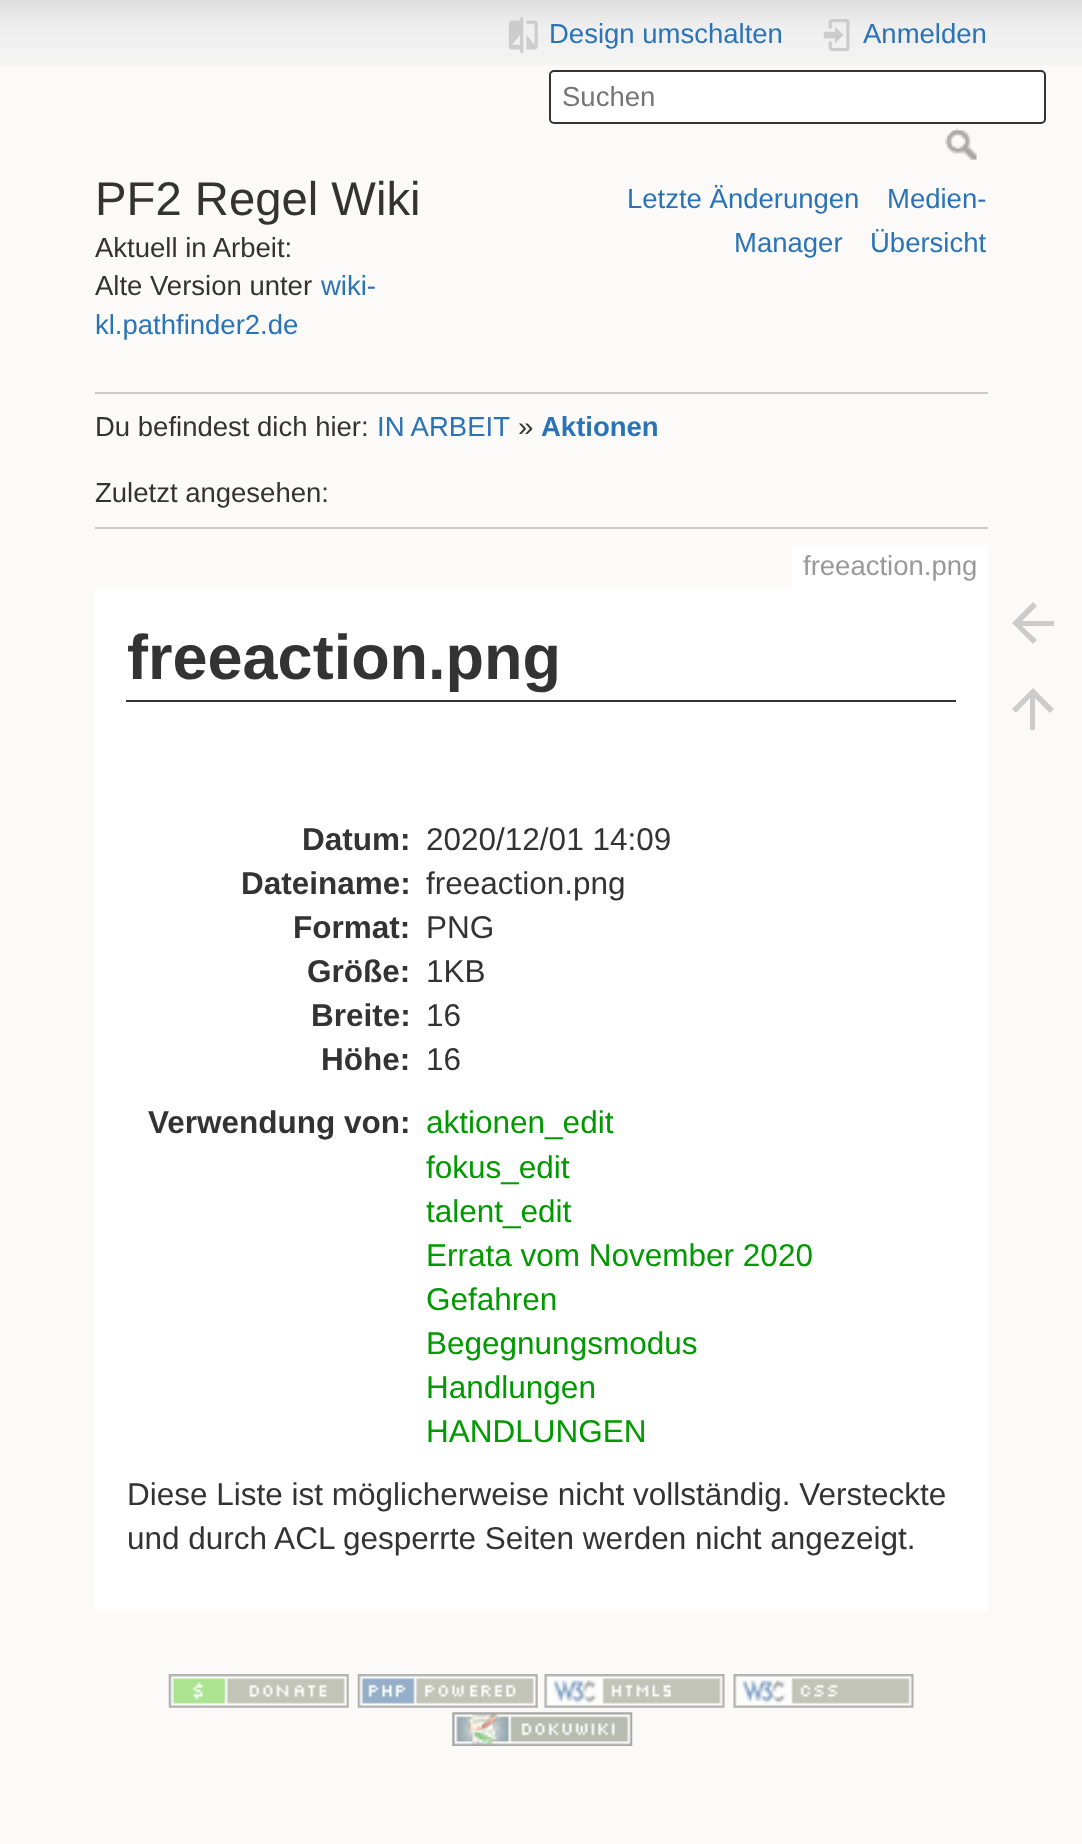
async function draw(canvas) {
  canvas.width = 1082
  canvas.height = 1844
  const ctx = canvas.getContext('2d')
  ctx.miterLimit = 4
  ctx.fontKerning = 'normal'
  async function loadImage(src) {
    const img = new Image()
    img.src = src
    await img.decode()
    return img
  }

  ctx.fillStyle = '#fbfaf9'
  ctx.fillRect(0, 0, 1082, 1844)
  ctx.drawImage(await loadImage('image0.png'), 0, 0, 1082, 65)
  ctx.font = '47.25px Liberation Sans'
  ctx.fillStyle = '#333'
  ctx.fillText('PF2 Regel Wiki', 95, 215)
  ctx.font = '27.5px Liberation Sans'
  ctx.fillText('Aktuell in Arbeit:', 95, 257)
  ctx.fillText('Alte Version unter', 95, 295)
  ctx.fillStyle = '#2b73b7'
  ctx.fillText('wiki-', 321, 295)
  ctx.fillText('kl.pathfinder2.de', 95, 334)
  ctx.drawImage(await loadImage('image1.png'), 508, 17, 30, 36)
  ctx.fillText('Design umschalten', 549, 43)
  ctx.drawImage(await loadImage('image2.png'), 823, 19, 27, 33)
  ctx.fillText('Anmelden', 863, 43)
  ctx.fillStyle = '#fff'
  ctx.beginPath()
  ctx.roundRect(550, 71, 495, 52, 4)
  ctx.fill()
  ctx.strokeStyle = '#333'
  ctx.lineWidth = 2
  ctx.stroke()
  ctx.fillStyle = '#757575'
  ctx.fillText('Suchen', 562, 106)
  ctx.drawImage(await loadImage('image3.png'), 945, 128, 32, 32)
  ctx.fillStyle = '#2b73b7'
  ctx.fillText('Letzte Änderungen', 627, 208)
  ctx.fillText('Medien-', 887, 208)
  ctx.fillText('Manager', 734, 252)
  ctx.fillText('Übersicht', 870, 252)
  ctx.fillStyle = '#ccc'
  ctx.fillRect(95, 392, 893, 2)
  ctx.fillRect(95, 527, 893, 2)
  ctx.fillStyle = '#333'
  ctx.fillText('Du befindest dich hier:', 95, 436)
  ctx.fillStyle = '#2b73b7'
  ctx.fillText('IN ARBEIT', 377, 436)
  ctx.fillStyle = '#333'
  ctx.fillText('»', 518, 436)
  ctx.font = 'bold 27.5px Liberation Sans'
  ctx.fillStyle = '#2b73b7'
  ctx.fillText('Aktionen', 541, 436)
  ctx.font = '27.5px Liberation Sans'
  ctx.fillStyle = '#333'
  ctx.fillText('Zuletzt angesehen:', 95, 502)
  ctx.fillStyle = '#fff'
  ctx.fillRect(792, 545, 196, 42)
  ctx.fillStyle = '#999'
  ctx.fillText('freeaction.png', 803, 575)
  ctx.fillStyle = '#fff'
  ctx.fillRect(95, 587, 893, 1024)
  ctx.fillStyle = '#333'
  ctx.fillRect(126, 700, 830, 2)
  ctx.font = 'bold 63px Liberation Sans'
  ctx.fillText('freeaction.png', 127, 679)
  ctx.font = 'bold 31.5px Liberation Sans'
  ctx.fillText('Datum:', 302, 850)
  ctx.font = '31.5px Liberation Sans'
  ctx.fillText('2020/12/01 14:09', 426, 850)
  ctx.font = 'bold 31.5px Liberation Sans'
  ctx.fillText('Dateiname:', 241, 894)
  ctx.font = '31.5px Liberation Sans'
  ctx.fillText('freeaction.png', 426, 894)
  ctx.font = 'bold 31.5px Liberation Sans'
  ctx.fillText('Format:', 293, 938)
  ctx.font = '31.5px Liberation Sans'
  ctx.fillText('PNG', 426, 938)
  ctx.font = 'bold 31.5px Liberation Sans'
  ctx.fillText('Größe:', 307, 982)
  ctx.font = '31.5px Liberation Sans'
  ctx.fillText('1KB', 426, 982)
  ctx.font = 'bold 31.5px Liberation Sans'
  ctx.fillText('Breite:', 311, 1026)
  ctx.font = '31.5px Liberation Sans'
  ctx.fillText('16', 426, 1026)
  ctx.font = 'bold 31.5px Liberation Sans'
  ctx.fillText('Höhe:', 321, 1070)
  ctx.font = '31.5px Liberation Sans'
  ctx.fillText('16', 426, 1070)
  ctx.font = 'bold 31.5px Liberation Sans'
  ctx.fillText('Verwendung von:', 148, 1133)
  ctx.font = '31.5px Liberation Sans'
  ctx.fillStyle = '#090'
  ctx.fillText('aktionen_edit', 426, 1133)
  ctx.fillText('fokus_edit', 426, 1178)
  ctx.fillText('talent_edit', 426, 1222)
  ctx.fillText('Errata vom November 2020', 426, 1266)
  ctx.fillText('Gefahren', 426, 1310)
  ctx.fillText('Begegnungsmodus', 426, 1354)
  ctx.fillText('Handlungen', 426, 1398)
  ctx.fillText('HANDLUNGEN', 426, 1442)
  ctx.fillStyle = '#333'
  ctx.fillText('Diese Liste ist möglicherweise nicht vollständig. Versteckte', 127, 1505)
  ctx.fillText('und durch ACL gesperrte Seiten werden nicht angezeigt.', 127, 1549)
  ctx.fillStyle = '#ccc'
  ctx.beginPath()
  ctx.moveTo(1054, 621)
  ctx.lineTo(1054, 626)
  ctx.lineTo(1022, 626)
  ctx.lineTo(1037, 640)
  ctx.lineTo(1033, 644)
  ctx.lineTo(1012, 623)
  ctx.lineTo(1033, 602)
  ctx.lineTo(1037, 606)
  ctx.lineTo(1022, 621)
  ctx.closePath()
  ctx.fill()
  ctx.beginPath()
  ctx.moveTo(1035, 730)
  ctx.lineTo(1030, 730)
  ctx.lineTo(1030, 698)
  ctx.lineTo(1016, 713)
  ctx.lineTo(1012, 709)
  ctx.lineTo(1033, 688)
  ctx.lineTo(1054, 709)
  ctx.lineTo(1050, 713)
  ctx.lineTo(1035, 698)
  ctx.closePath()
  ctx.fill()
  ctx.drawImage(await loadImage('image4.png'), 168, 1674, 181, 34)
  ctx.drawImage(await loadImage('image5.png'), 357, 1674, 181, 34)
  ctx.drawImage(await loadImage('image6.png'), 544, 1674, 181, 34)
  ctx.drawImage(await loadImage('image7.png'), 733, 1674, 181, 34)
  ctx.drawImage(await loadImage('image8.png'), 452, 1712, 181, 34)
}

draw(document.querySelector('canvas'))
